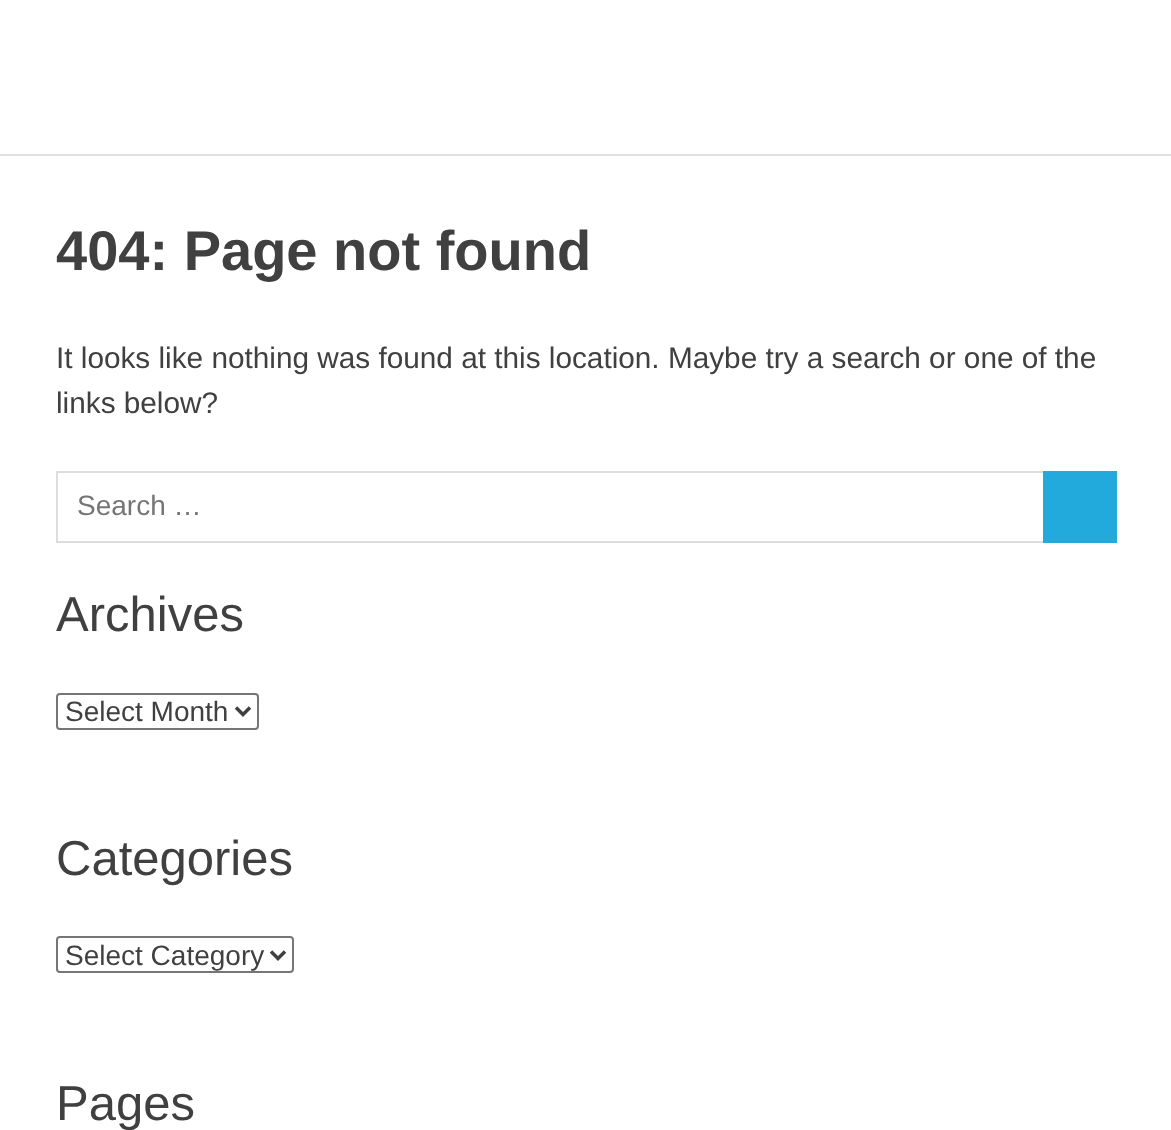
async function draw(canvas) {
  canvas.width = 1171
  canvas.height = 1130
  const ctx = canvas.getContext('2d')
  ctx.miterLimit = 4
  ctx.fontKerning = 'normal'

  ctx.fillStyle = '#fff'
  ctx.fillRect(0, 0, 1171, 1130)
  ctx.fillStyle = '#e0e0e0'
  ctx.fillRect(0, 154, 1171, 2)
  ctx.font = 'bold 56px Liberation Sans'
  ctx.fillStyle = '#404040'
  ctx.fillText('404: Page not found', 56, 270)
  ctx.font = '29.75px Liberation Sans'
  ctx.fillText('It looks like nothing was found at this location. Maybe try a search or one of the', 56, 368)
  ctx.fillText('links below?', 56, 413)
  ctx.strokeStyle = '#ddd'
  ctx.lineWidth = 2
  ctx.strokeRect(57, 472, 987, 70)
  ctx.font = '28px Liberation Sans'
  ctx.fillStyle = '#757575'
  ctx.fillText('Search …', 77, 515)
  ctx.fillStyle = '#2ad'
  ctx.fillRect(1043, 471, 74, 72)
  ctx.font = '49px Liberation Sans'
  ctx.fillStyle = '#404040'
  ctx.fillText('Archives', 56, 631)
  ctx.beginPath()
  ctx.roundRect(57, 694, 201, 35, 3)
  ctx.strokeStyle = '#767676'
  ctx.stroke()
  ctx.beginPath()
  ctx.moveTo(236, 707.5)
  ctx.lineTo(243, 714.5)
  ctx.lineTo(250, 707.5)
  ctx.strokeStyle = '#404040'
  ctx.lineWidth = 3.5
  ctx.stroke()
  ctx.font = '28px Liberation Sans'
  ctx.fillText('Select Month', 65, 721)
  ctx.font = '49px Liberation Sans'
  ctx.fillText('Categories', 56, 875)
  ctx.beginPath()
  ctx.roundRect(57, 937, 236, 35, 3)
  ctx.strokeStyle = '#767676'
  ctx.lineWidth = 2
  ctx.stroke()
  ctx.beginPath()
  ctx.moveTo(271, 951.5)
  ctx.lineTo(278, 958.5)
  ctx.lineTo(285, 951.5)
  ctx.strokeStyle = '#404040'
  ctx.lineWidth = 3.5
  ctx.stroke()
  ctx.font = '28px Liberation Sans'
  ctx.fillText('Select Category', 65, 965)
  ctx.font = '49px Liberation Sans'
  ctx.fillText('Pages', 56, 1120)
}

draw(document.querySelector('canvas'))
